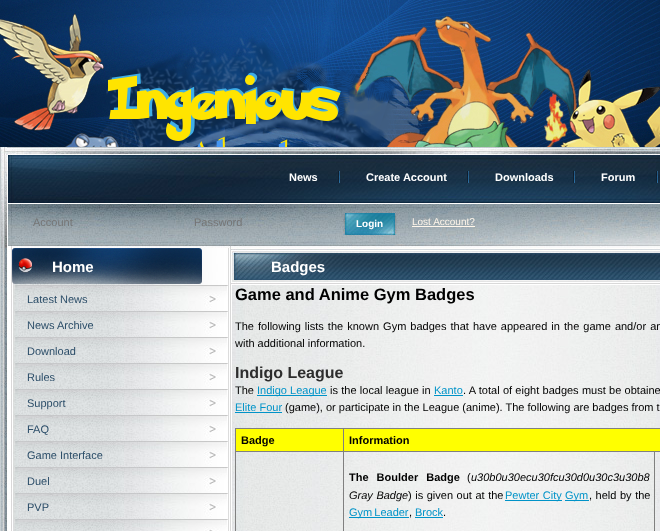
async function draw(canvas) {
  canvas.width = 660
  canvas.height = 531
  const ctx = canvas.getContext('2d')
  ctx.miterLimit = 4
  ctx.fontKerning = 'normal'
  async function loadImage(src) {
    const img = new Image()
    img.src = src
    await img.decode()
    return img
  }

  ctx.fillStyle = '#fff'
  ctx.fillRect(0, 0, 660, 531)
  ctx.drawImage(await loadImage('image0.png'), 0, 0, 660, 147)
  ctx.drawImage(await loadImage('image1.png'), 0, 147, 660, 57)
  ctx.font = 'bold 11px Liberation Sans'
  ctx.fillText('News', 289, 181)
  ctx.drawImage(await loadImage('image2.png'), 338, 171, 2, 12)
  ctx.fillText('Create Account', 366, 181)
  ctx.drawImage(await loadImage('image2.png'), 467, 171, 2, 12)
  ctx.fillText('Downloads', 495, 181)
  ctx.drawImage(await loadImage('image2.png'), 573, 171, 2, 12)
  ctx.fillText('Forum', 601, 181)
  ctx.drawImage(await loadImage('image2.png'), 656, 171, 2, 12)
  ctx.drawImage(await loadImage('image3.png'), 0, 204, 660, 44)
  ctx.font = '11px Liberation Sans'
  ctx.fillStyle = '#757575'
  ctx.fillText('Account', 33, 226)
  ctx.fillText('Password', 194, 226)
  ctx.drawImage(await loadImage('image4.png'), 343, 213, 54, 22)
  ctx.font = 'bold 10px Liberation Sans'
  ctx.fillStyle = '#fff'
  ctx.fillText('Login', 356, 227)
  ctx.font = '10px Liberation Sans'
  ctx.fillStyle = '#fff6eb'
  ctx.fillText('Lost Account?', 412, 225)
  ctx.fillRect(412, 226, 63, 1)
  ctx.drawImage(await loadImage('image5.png'), 0, 248, 660, 283)
  ctx.drawImage(await loadImage('image6.png'), 12, 248, 190, 36)
  ctx.font = 'bold 15px Liberation Sans'
  ctx.fillStyle = '#fff'
  ctx.fillText('Home', 52, 272)
  ctx.drawImage(await loadImage('image7.png'), 13, 285, 215, 26)
  ctx.font = '11px Liberation Sans'
  ctx.fillStyle = '#2b4d68'
  ctx.fillText('Latest News', 27, 303)
  ctx.drawImage(await loadImage('image7.png'), 13, 311, 215, 26)
  ctx.fillText('News Archive', 27, 329)
  ctx.drawImage(await loadImage('image7.png'), 13, 337, 215, 26)
  ctx.fillText('Download', 27, 355)
  ctx.drawImage(await loadImage('image7.png'), 13, 363, 215, 26)
  ctx.fillText('Rules', 27, 381)
  ctx.drawImage(await loadImage('image7.png'), 13, 389, 215, 26)
  ctx.fillText('Support', 27, 407)
  ctx.drawImage(await loadImage('image7.png'), 13, 415, 215, 26)
  ctx.fillText('FAQ', 27, 433)
  ctx.drawImage(await loadImage('image7.png'), 13, 441, 215, 26)
  ctx.fillText('Game Interface', 27, 459)
  ctx.drawImage(await loadImage('image7.png'), 13, 467, 215, 26)
  ctx.fillText('Duel', 27, 485)
  ctx.drawImage(await loadImage('image7.png'), 13, 493, 215, 26)
  ctx.fillText('PVP', 27, 511)
  ctx.drawImage(await loadImage('image8.png'), 14, 519, 214, 12)
  ctx.drawImage(await loadImage('image9.png'), 231, 248, 429, 37)
  ctx.font = 'bold 15px Liberation Sans'
  ctx.fillStyle = '#fff'
  ctx.fillText('Badges', 271, 272)
  ctx.font = 'bold 16.5px Liberation Sans'
  ctx.fillStyle = '#000'
  ctx.fillText('Game and Anime Gym Badges', 235, 300)
  ctx.wordSpacing = '1px'
  ctx.font = '11px Liberation Sans'
  ctx.fillText('The following lists the known Gym badges that have appeared in the game and/or an', 235, 330)
  ctx.wordSpacing = '0px'
  ctx.fillText('with additional information.', 235, 347)
  ctx.font = 'bold 16px Liberation Sans'
  ctx.fillStyle = '#2d2d2d'
  ctx.fillText('Indigo League', 235, 378)
  ctx.font = '11px Liberation Sans'
  ctx.fillStyle = '#000'
  ctx.fillText('The', 235, 394)
  ctx.fillStyle = '#0093c8'
  ctx.fillRect(257, 395, 70, 1)
  ctx.fillText('Indigo League', 257, 394)
  ctx.wordSpacing = '0.25px'
  ctx.fillStyle = '#000'
  ctx.fillText('is the local league in', 330, 394)
  ctx.wordSpacing = '0px'
  ctx.fillStyle = '#0093c8'
  ctx.fillText('Kanto', 434, 394)
  ctx.fillRect(434, 395, 29, 1)
  ctx.wordSpacing = '0.25px'
  ctx.fillStyle = '#000'
  ctx.fillText('. A total of eight badges must be obtaine', 463, 394)
  ctx.wordSpacing = '0px'
  ctx.fillStyle = '#0093c8'
  ctx.fillText('Elite Four', 235, 411)
  ctx.fillRect(235, 412, 47, 1)
  ctx.fillStyle = '#000'
  ctx.fillText('(game), or participate in the League (anime). The following are badges from t', 285, 411)
  ctx.fillStyle = '#808080'
  ctx.fillRect(235, 428, 425, 1)
  ctx.fillRect(235, 428, 1, 103)
  ctx.fillStyle = '#ff0'
  ctx.fillRect(236, 429, 107, 22)
  ctx.font = 'bold 11px Liberation Sans'
  ctx.fillStyle = '#000'
  ctx.fillText('Badge', 241, 444)
  ctx.fillStyle = '#ff0'
  ctx.fillRect(344, 429, 316, 22)
  ctx.fillStyle = '#808080'
  ctx.fillRect(654, 451, 6, 1)
  ctx.fillRect(654, 451, 1, 80)
  ctx.fillRect(343, 451, 312, 1)
  ctx.fillRect(343, 451, 1, 80)
  ctx.fillRect(235, 451, 109, 1)
  ctx.fillRect(343, 428, 1, 24)
  ctx.fillStyle = '#000'
  ctx.fillText('Information', 349, 444)
  ctx.wordSpacing = '5px'
  ctx.fillText('The Boulder Badge', 349, 481)
  ctx.wordSpacing = '0px'
  ctx.font = '11px Liberation Sans'
  ctx.fillText('(', 467, 481)
  ctx.font = 'italic 11px Liberation Sans'
  ctx.fillText('u30b0u30ecu30fcu30d0u30c3u30b8', 471, 481)
  ctx.wordSpacing = '0.5px'
  ctx.fillText('Gray Badge', 349, 499)
  ctx.font = '11px Liberation Sans'
  ctx.fillText(') is given out at the', 408, 499)
  ctx.fillStyle = '#0093c8'
  ctx.fillRect(505, 500, 57, 1)
  ctx.fillText('Pewter City', 505, 499)
  ctx.fillRect(565, 500, 24, 1)
  ctx.wordSpacing = '0px'
  ctx.fillText('Gym', 565, 499)
  ctx.wordSpacing = '0.5px'
  ctx.fillStyle = '#000'
  ctx.fillText(', held by the', 589, 499)
  ctx.fillStyle = '#0093c8'
  ctx.fillRect(349, 517, 60, 1)
  ctx.wordSpacing = '-1px'
  ctx.fillText('Gym Leader', 349, 516)
  ctx.wordSpacing = '0px'
  ctx.fillStyle = '#000'
  ctx.fillText(',', 409, 516)
  ctx.fillStyle = '#0093c8'
  ctx.fillText('Brock', 415, 516)
  ctx.fillRect(415, 517, 28, 1)
  ctx.fillStyle = '#000'
  ctx.fillText('.', 443, 516)
}

draw(document.querySelector('canvas'))
